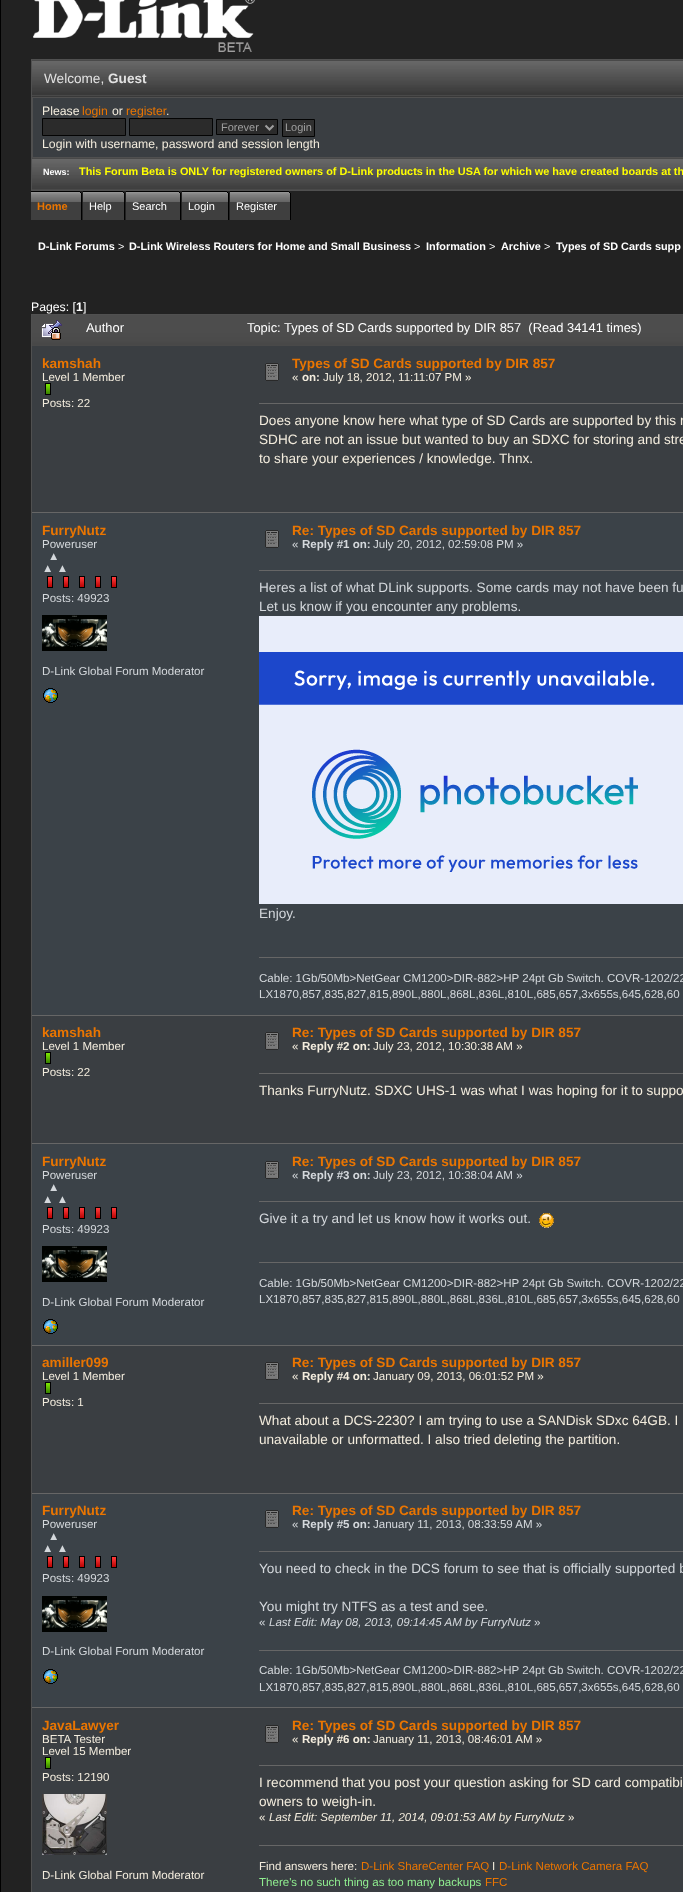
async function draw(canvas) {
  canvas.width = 683
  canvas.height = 1892
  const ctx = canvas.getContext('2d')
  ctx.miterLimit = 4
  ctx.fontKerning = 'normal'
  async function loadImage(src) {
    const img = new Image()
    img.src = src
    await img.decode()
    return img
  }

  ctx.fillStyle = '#222'
  ctx.fillRect(0, 0, 683, 1892)
  ctx.strokeStyle = '#000'
  ctx.strokeRect(0.5, -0.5, 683, 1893)
  ctx.drawImage(await loadImage('image0.png'), 33, 0, 222, 52)
  ctx.fillStyle = '#393939'
  ctx.fillRect(32, 96, 651, 1)
  ctx.strokeStyle = '#505050'
  ctx.strokeRect(31.5, 59.5, 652, 131)
  ctx.drawImage(await loadImage('image1.png'), 32, 61, 651, 34)
  ctx.fillStyle = '#494949'
  ctx.fillRect(32, 60, 651, 1)
  ctx.fillRect(32, 95, 651, 1)
  ctx.font = '13.6px Liberation Sans'
  ctx.fillStyle = '#e3e3e3'
  ctx.fillText('Welcome,', 44, 83)
  ctx.font = 'bold 13.6px Liberation Sans'
  ctx.fillText('Guest', 108, 83)
  ctx.fillStyle = '#505050'
  ctx.fillRect(32, 97, 651, 61)
  ctx.fillStyle = '#3a3e42'
  ctx.fillRect(33, 98, 650, 59)
  ctx.font = '12.25px Liberation Sans'
  ctx.fillStyle = '#f3ecdd'
  ctx.fillText('Please', 42, 115)
  ctx.fillStyle = '#ea7500'
  ctx.fillText('login', 82, 115)
  ctx.fillStyle = '#f3ecdd'
  ctx.fillText('or', 112, 115)
  ctx.fillStyle = '#ea7500'
  ctx.fillText('register', 126, 115)
  ctx.fillStyle = '#f3ecdd'
  ctx.fillText('.', 166, 115)
  ctx.fillStyle = '#2b2b2b'
  ctx.beginPath()
  ctx.rect(42.5, 118.5, 83, 17)
  ctx.fill()
  ctx.strokeStyle = '#040404'
  ctx.stroke()
  ctx.beginPath()
  ctx.rect(129.5, 118.5, 83, 17)
  ctx.fill()
  ctx.stroke()
  ctx.beginPath()
  ctx.rect(216.5, 119.5, 61, 15)
  ctx.fill()
  ctx.stroke()
  ctx.beginPath()
  ctx.moveTo(265.5, 125.5)
  ctx.lineTo(269.5, 129.5)
  ctx.lineTo(273.5, 125.5)
  ctx.strokeStyle = '#9f9f9f'
  ctx.lineWidth = 2
  ctx.stroke()
  ctx.font = '11px Liberation Sans'
  ctx.fillStyle = '#9f9f9f'
  ctx.fillText('Forever', 221, 131)
  ctx.fillStyle = '#2f2f2f'
  ctx.beginPath()
  ctx.rect(282.5, 119.5, 32, 17)
  ctx.fill()
  ctx.strokeStyle = '#040404'
  ctx.lineWidth = 1
  ctx.stroke()
  ctx.fillStyle = '#9f9f9f'
  ctx.fillText('Login', 285, 131)
  ctx.font = '12.25px Liberation Sans'
  ctx.fillStyle = '#f3ecdd'
  ctx.fillText('Login with username, password and session length', 42, 148)
  ctx.drawImage(await loadImage('image2.png'), 32, 159, 651, 30)
  ctx.fillStyle = '#494949'
  ctx.fillRect(32, 158, 651, 1)
  ctx.fillRect(32, 189, 651, 1)
  ctx.font = 'bold 9px Liberation Sans'
  ctx.fillStyle = '#fff'
  ctx.fillText('News:', 43, 175)
  ctx.font = 'bold 10.88px Liberation Sans'
  ctx.fillStyle = '#ff0'
  ctx.fillText('This Forum Beta is ONLY for registered owners of D-Link products in the USA for which we have created boards at th', 79, 175)
  ctx.drawImage(await loadImage('image3.png'), 31, 191, 51, 29)
  ctx.font = 'bold 11px Liberation Sans'
  ctx.fillStyle = '#ea7500'
  ctx.fillText('Home', 37, 210)
  ctx.drawImage(await loadImage('image4.png'), 83, 191, 42, 29)
  ctx.font = '11px Liberation Sans'
  ctx.fillStyle = '#fff'
  ctx.fillText('Help', 89, 210)
  ctx.drawImage(await loadImage('image5.png'), 126, 191, 55, 29)
  ctx.fillText('Search', 132, 210)
  ctx.drawImage(await loadImage('image6.png'), 182, 191, 47, 29)
  ctx.fillText('Login', 188, 210)
  ctx.drawImage(await loadImage('image7.png'), 230, 191, 61, 29)
  ctx.fillText('Register', 236, 210)
  ctx.font = 'bold 10.88px Liberation Sans'
  ctx.fillText('D-Link Forums', 38, 250)
  ctx.font = '10.88px Liberation Sans'
  ctx.fillText('>', 118, 250)
  ctx.font = 'bold 10.88px Liberation Sans'
  ctx.fillText('D-Link Wireless Routers for Home and Small Business', 129, 250)
  ctx.font = '10.88px Liberation Sans'
  ctx.fillText('>', 414, 250)
  ctx.font = 'bold 10.88px Liberation Sans'
  ctx.fillText('Information', 426, 250)
  ctx.font = '10.88px Liberation Sans'
  ctx.fillText('>', 489, 250)
  ctx.font = 'bold 10.88px Liberation Sans'
  ctx.fillText('Archive', 501, 250)
  ctx.font = '10.88px Liberation Sans'
  ctx.fillText('>', 544, 250)
  ctx.font = 'bold 10.88px Liberation Sans'
  ctx.fillText('Types of SD Cards supp', 556, 250)
  ctx.font = '12.25px Liberation Sans'
  ctx.fillText('Pages: [', 31, 311)
  ctx.font = 'bold 12.25px Liberation Sans'
  ctx.fillText('1', 76, 311)
  ctx.font = '12.25px Liberation Sans'
  ctx.fillText(']', 83, 311)
  ctx.strokeStyle = '#505050'
  ctx.strokeRect(31.5, 314.5, 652, 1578)
  ctx.drawImage(await loadImage('image8.png'), 32, 315, 651, 30)
  ctx.fillStyle = '#494949'
  ctx.fillRect(32, 345, 651, 1)
  ctx.drawImage(await loadImage('image9.png'), 41, 320, 21, 20)
  ctx.font = '12.9px Liberation Sans'
  ctx.fillStyle = '#fff'
  ctx.fillText('Author', 86, 332)
  ctx.fillText('Topic: Types of SD Cards supported by DIR 857  (Read 34141 times)', 247, 332)
  ctx.fillStyle = '#3a3e42'
  ctx.fillRect(32, 346, 651, 166)
  ctx.font = 'bold 13.6px Liberation Sans'
  ctx.fillStyle = '#ea7500'
  ctx.fillText('kamshah', 42, 368)
  ctx.font = '11.55px Liberation Sans'
  ctx.fillStyle = '#f3ecdd'
  ctx.fillText('Level 1 Member', 42, 381)
  ctx.drawImage(await loadImage('image10.png'), 45, 383, 6, 12)
  ctx.fillText('Posts: 22', 42, 407)
  ctx.drawImage(await loadImage('image11.png'), 265, 363, 14, 18)
  ctx.font = 'bold 13.6px Liberation Sans'
  ctx.fillStyle = '#ea7500'
  ctx.fillText('Types of SD Cards supported by DIR 857', 292, 368)
  ctx.font = '11.55px Liberation Sans'
  ctx.fillStyle = '#f3ecdd'
  ctx.fillText('«', 292, 381)
  ctx.font = 'bold 11.55px Liberation Sans'
  ctx.fillText('on:', 302, 381)
  ctx.font = '11.55px Liberation Sans'
  ctx.fillText('July 18, 2012, 11:11:07 PM »', 323, 381)
  ctx.fillStyle = '#666'
  ctx.fillRect(259, 403, 424, 1)
  ctx.font = '13.6px Liberation Sans'
  ctx.fillStyle = '#f3ecdd'
  ctx.fillText('Does anyone know here what type of SD Cards are supported by this r', 259, 425)
  ctx.fillText('SDHC are not an issue but wanted to buy an SDXC for storing and stre', 259, 444)
  ctx.fillText('to share your experiences / knowledge. Thnx.', 259, 463)
  ctx.fillStyle = '#3b4248'
  ctx.fillRect(32, 513, 651, 502)
  ctx.fillStyle = '#666'
  ctx.fillRect(32, 512, 651, 1)
  ctx.font = 'bold 13.6px Liberation Sans'
  ctx.fillStyle = '#ea7500'
  ctx.fillText('FurryNutz', 42, 535)
  ctx.font = '11.55px Liberation Sans'
  ctx.fillStyle = '#d4d8dc'
  ctx.fillText('Poweruser', 42, 548)
  ctx.fillText('▲', 48, 560)
  ctx.fillText('▲ ▲', 42, 572)
  ctx.drawImage(await loadImage('image12.png'), 47, 576, 6, 12)
  ctx.drawImage(await loadImage('image12.png'), 63, 576, 6, 12)
  ctx.drawImage(await loadImage('image12.png'), 79, 576, 6, 12)
  ctx.drawImage(await loadImage('image12.png'), 95, 576, 6, 12)
  ctx.drawImage(await loadImage('image12.png'), 111, 576, 6, 12)
  ctx.fillText('Posts: 49923', 42, 602)
  ctx.drawImage(await loadImage('image13.png'), 42, 615, 65, 36)
  ctx.fillText('D-Link Global Forum Moderator', 42, 675)
  ctx.drawImage(await loadImage('image14.png'), 43, 688, 15, 15)
  ctx.drawImage(await loadImage('image15.png'), 265, 530, 14, 18)
  ctx.font = 'bold 13.6px Liberation Sans'
  ctx.fillStyle = '#ea7500'
  ctx.fillText('Re: Types of SD Cards supported by DIR 857', 292, 535)
  ctx.font = '11.55px Liberation Sans'
  ctx.fillStyle = '#d4d8dc'
  ctx.fillText('«', 292, 548)
  ctx.font = 'bold 11.55px Liberation Sans'
  ctx.fillText('Reply #1 on:', 302, 548)
  ctx.font = '11.55px Liberation Sans'
  ctx.fillText('July 20, 2012, 02:59:08 PM »', 373, 548)
  ctx.fillStyle = '#666'
  ctx.fillRect(259, 570, 424, 1)
  ctx.font = '13.6px Liberation Sans'
  ctx.fillStyle = '#d4d8dc'
  ctx.fillText('Heres a list of what DLink supports. Some cards may not have been fu', 259, 592)
  ctx.fillText('Let us know if you encounter any problems.', 259, 611)
  ctx.drawImage(await loadImage('image16.png'), 259, 616, 424, 288)
  ctx.fillText('Enjoy.', 259, 918)
  ctx.fillStyle = '#666'
  ctx.fillRect(259, 957, 424, 1)
  ctx.font = '11.55px Liberation Sans'
  ctx.fillStyle = '#d4d8dc'
  ctx.fillText('Cable: 1Gb/50Mb>NetGear CM1200>DIR-882>HP 24pt Gb Switch. COVR-1202/22', 259, 982)
  ctx.fillText('LX1870,857,835,827,815,890L,880L,868L,836L,810L,685,657,3x655s,645,628,60', 259, 998)
  ctx.fillStyle = '#3a3e42'
  ctx.fillRect(32, 1016, 651, 127)
  ctx.fillStyle = '#666'
  ctx.fillRect(32, 1015, 651, 1)
  ctx.font = 'bold 13.6px Liberation Sans'
  ctx.fillStyle = '#ea7500'
  ctx.fillText('kamshah', 42, 1037)
  ctx.font = '11.55px Liberation Sans'
  ctx.fillStyle = '#f3ecdd'
  ctx.fillText('Level 1 Member', 42, 1050)
  ctx.drawImage(await loadImage('image10.png'), 45, 1052, 6, 12)
  ctx.fillText('Posts: 22', 42, 1076)
  ctx.drawImage(await loadImage('image11.png'), 265, 1032, 14, 18)
  ctx.font = 'bold 13.6px Liberation Sans'
  ctx.fillStyle = '#ea7500'
  ctx.fillText('Re: Types of SD Cards supported by DIR 857', 292, 1037)
  ctx.font = '11.55px Liberation Sans'
  ctx.fillStyle = '#f3ecdd'
  ctx.fillText('«', 292, 1050)
  ctx.font = 'bold 11.55px Liberation Sans'
  ctx.fillText('Reply #2 on:', 302, 1050)
  ctx.font = '11.55px Liberation Sans'
  ctx.fillText('July 23, 2012, 10:30:38 AM »', 373, 1050)
  ctx.fillStyle = '#666'
  ctx.fillRect(259, 1073, 424, 1)
  ctx.font = '13.6px Liberation Sans'
  ctx.fillStyle = '#f3ecdd'
  ctx.fillText('Thanks FurryNutz. SDXC UHS-1 was what I was hoping for it to suppo', 259, 1095)
  ctx.fillStyle = '#3b4248'
  ctx.fillRect(32, 1144, 651, 201)
  ctx.fillStyle = '#666'
  ctx.fillRect(32, 1143, 651, 1)
  ctx.font = 'bold 13.6px Liberation Sans'
  ctx.fillStyle = '#ea7500'
  ctx.fillText('FurryNutz', 42, 1166)
  ctx.font = '11.55px Liberation Sans'
  ctx.fillStyle = '#d4d8dc'
  ctx.fillText('Poweruser', 42, 1179)
  ctx.fillText('▲', 48, 1191)
  ctx.fillText('▲ ▲', 42, 1203)
  ctx.drawImage(await loadImage('image12.png'), 47, 1207, 6, 12)
  ctx.drawImage(await loadImage('image12.png'), 63, 1207, 6, 12)
  ctx.drawImage(await loadImage('image12.png'), 79, 1207, 6, 12)
  ctx.drawImage(await loadImage('image12.png'), 95, 1207, 6, 12)
  ctx.drawImage(await loadImage('image12.png'), 111, 1207, 6, 12)
  ctx.fillText('Posts: 49923', 42, 1233)
  ctx.drawImage(await loadImage('image13.png'), 42, 1246, 65, 36)
  ctx.fillText('D-Link Global Forum Moderator', 42, 1306)
  ctx.drawImage(await loadImage('image14.png'), 43, 1319, 15, 15)
  ctx.drawImage(await loadImage('image15.png'), 265, 1161, 14, 18)
  ctx.font = 'bold 13.6px Liberation Sans'
  ctx.fillStyle = '#ea7500'
  ctx.fillText('Re: Types of SD Cards supported by DIR 857', 292, 1166)
  ctx.font = '11.55px Liberation Sans'
  ctx.fillStyle = '#d4d8dc'
  ctx.fillText('«', 292, 1179)
  ctx.font = 'bold 11.55px Liberation Sans'
  ctx.fillText('Reply #3 on:', 302, 1179)
  ctx.font = '11.55px Liberation Sans'
  ctx.fillText('July 23, 2012, 10:38:04 AM »', 373, 1179)
  ctx.fillStyle = '#666'
  ctx.fillRect(259, 1201, 424, 1)
  ctx.font = '13.6px Liberation Sans'
  ctx.fillStyle = '#d4d8dc'
  ctx.fillText('Give it a try and let us know how it works out.', 259, 1223)
  ctx.drawImage(await loadImage('image17.png'), 539, 1213, 15, 15)
  ctx.fillStyle = '#666'
  ctx.fillRect(259, 1262, 424, 1)
  ctx.font = '11.55px Liberation Sans'
  ctx.fillStyle = '#d4d8dc'
  ctx.fillText('Cable: 1Gb/50Mb>NetGear CM1200>DIR-882>HP 24pt Gb Switch. COVR-1202/22', 259, 1287)
  ctx.fillText('LX1870,857,835,827,815,890L,880L,868L,836L,810L,685,657,3x655s,645,628,60', 259, 1303)
  ctx.fillStyle = '#3a3e42'
  ctx.fillRect(32, 1346, 651, 147)
  ctx.fillStyle = '#666'
  ctx.fillRect(32, 1345, 651, 1)
  ctx.font = 'bold 13.6px Liberation Sans'
  ctx.fillStyle = '#ea7500'
  ctx.fillText('amiller099', 42, 1367)
  ctx.font = '11.55px Liberation Sans'
  ctx.fillStyle = '#f3ecdd'
  ctx.fillText('Level 1 Member', 42, 1380)
  ctx.drawImage(await loadImage('image10.png'), 45, 1382, 6, 12)
  ctx.fillText('Posts: 1', 42, 1406)
  ctx.drawImage(await loadImage('image11.png'), 265, 1362, 14, 18)
  ctx.font = 'bold 13.6px Liberation Sans'
  ctx.fillStyle = '#ea7500'
  ctx.fillText('Re: Types of SD Cards supported by DIR 857', 292, 1367)
  ctx.font = '11.55px Liberation Sans'
  ctx.fillStyle = '#f3ecdd'
  ctx.fillText('«', 292, 1380)
  ctx.font = 'bold 11.55px Liberation Sans'
  ctx.fillText('Reply #4 on:', 302, 1380)
  ctx.font = '11.55px Liberation Sans'
  ctx.fillText('January 09, 2013, 06:01:52 PM »', 373, 1380)
  ctx.fillStyle = '#666'
  ctx.fillRect(259, 1403, 424, 1)
  ctx.font = '13.6px Liberation Sans'
  ctx.fillStyle = '#f3ecdd'
  ctx.fillText('What about a DCS-2230? I am trying to use a SANDisk SDxc 64GB. I', 259, 1425)
  ctx.fillText('unavailable or unformatted. I also tried deleting the partition.', 259, 1444)
  ctx.fillStyle = '#3b4248'
  ctx.fillRect(32, 1494, 651, 213)
  ctx.fillStyle = '#666'
  ctx.fillRect(32, 1493, 651, 1)
  ctx.font = 'bold 13.6px Liberation Sans'
  ctx.fillStyle = '#ea7500'
  ctx.fillText('FurryNutz', 42, 1515)
  ctx.font = '11.55px Liberation Sans'
  ctx.fillStyle = '#d4d8dc'
  ctx.fillText('Poweruser', 42, 1528)
  ctx.fillText('▲', 48, 1540)
  ctx.fillText('▲ ▲', 42, 1552)
  ctx.drawImage(await loadImage('image12.png'), 47, 1556, 6, 12)
  ctx.drawImage(await loadImage('image12.png'), 63, 1556, 6, 12)
  ctx.drawImage(await loadImage('image12.png'), 79, 1556, 6, 12)
  ctx.drawImage(await loadImage('image12.png'), 95, 1556, 6, 12)
  ctx.drawImage(await loadImage('image12.png'), 111, 1556, 6, 12)
  ctx.fillText('Posts: 49923', 42, 1582)
  ctx.drawImage(await loadImage('image13.png'), 42, 1596, 65, 36)
  ctx.fillText('D-Link Global Forum Moderator', 42, 1655)
  ctx.drawImage(await loadImage('image14.png'), 43, 1669, 15, 15)
  ctx.drawImage(await loadImage('image15.png'), 265, 1510, 14, 18)
  ctx.font = 'bold 13.6px Liberation Sans'
  ctx.fillStyle = '#ea7500'
  ctx.fillText('Re: Types of SD Cards supported by DIR 857', 292, 1515)
  ctx.font = '11.55px Liberation Sans'
  ctx.fillStyle = '#d4d8dc'
  ctx.fillText('«', 292, 1528)
  ctx.font = 'bold 11.55px Liberation Sans'
  ctx.fillText('Reply #5 on:', 302, 1528)
  ctx.font = '11.55px Liberation Sans'
  ctx.fillText('January 11, 2013, 08:33:59 AM »', 373, 1528)
  ctx.fillStyle = '#666'
  ctx.fillRect(259, 1551, 424, 1)
  ctx.font = '13.6px Liberation Sans'
  ctx.fillStyle = '#d4d8dc'
  ctx.fillText('You need to check in the DCS forum to see that is officially supported b', 259, 1573)
  ctx.fillText('You might try NTFS as a test and see.', 259, 1611)
  ctx.font = '11.55px Liberation Sans'
  ctx.fillText('«', 259, 1626)
  ctx.font = 'italic 11.55px Liberation Sans'
  ctx.fillText('Last Edit: May 08, 2013, 09:14:45 AM by FurryNutz', 269, 1626)
  ctx.font = '11.55px Liberation Sans'
  ctx.fillText('»', 534, 1626)
  ctx.fillStyle = '#666'
  ctx.fillRect(259, 1650, 424, 1)
  ctx.fillStyle = '#d4d8dc'
  ctx.fillText('Cable: 1Gb/50Mb>NetGear CM1200>DIR-882>HP 24pt Gb Switch. COVR-1202/22', 259, 1674)
  ctx.fillText('LX1870,857,835,827,815,890L,880L,868L,836L,810L,685,657,3x655s,645,628,60', 259, 1691)
  ctx.fillStyle = '#3a3e42'
  ctx.fillRect(32, 1708, 651, 184)
  ctx.fillStyle = '#666'
  ctx.fillRect(32, 1707, 651, 1)
  ctx.font = 'bold 13.6px Liberation Sans'
  ctx.fillStyle = '#ea7500'
  ctx.fillText('JavaLawyer', 42, 1730)
  ctx.font = '11.55px Liberation Sans'
  ctx.fillStyle = '#f3ecdd'
  ctx.fillText('BETA Tester', 42, 1743)
  ctx.fillText('Level 15 Member', 42, 1755)
  ctx.drawImage(await loadImage('image10.png'), 45, 1757, 6, 12)
  ctx.fillText('Posts: 12190', 42, 1781)
  ctx.drawImage(await loadImage('image18.png'), 42, 1794, 65, 61)
  ctx.fillText('D-Link Global Forum Moderator', 42, 1879)
  ctx.drawImage(await loadImage('image11.png'), 265, 1725, 14, 18)
  ctx.font = 'bold 13.6px Liberation Sans'
  ctx.fillStyle = '#ea7500'
  ctx.fillText('Re: Types of SD Cards supported by DIR 857', 292, 1730)
  ctx.font = '11.55px Liberation Sans'
  ctx.fillStyle = '#f3ecdd'
  ctx.fillText('«', 292, 1743)
  ctx.font = 'bold 11.55px Liberation Sans'
  ctx.fillText('Reply #6 on:', 302, 1743)
  ctx.font = '11.55px Liberation Sans'
  ctx.fillText('January 11, 2013, 08:46:01 AM »', 373, 1743)
  ctx.fillStyle = '#666'
  ctx.fillRect(259, 1765, 424, 1)
  ctx.font = '13.6px Liberation Sans'
  ctx.fillStyle = '#f3ecdd'
  ctx.fillText('I recommend that you post your question asking for SD card compatibi', 259, 1787)
  ctx.fillText('owners to weigh-in.', 259, 1806)
  ctx.font = '11.55px Liberation Sans'
  ctx.fillText('«', 259, 1821)
  ctx.font = 'italic 11.55px Liberation Sans'
  ctx.fillText('Last Edit: September 11, 2014, 09:01:53 AM by FurryNutz', 269, 1821)
  ctx.font = '11.55px Liberation Sans'
  ctx.fillText('»', 568, 1821)
  ctx.fillStyle = '#666'
  ctx.fillRect(259, 1845, 424, 1)
  ctx.fillStyle = '#f3ecdd'
  ctx.fillText('Find answers here:', 259, 1870)
  ctx.fillStyle = '#ea7500'
  ctx.fillText('D-Link ShareCenter FAQ', 361, 1870)
  ctx.fillStyle = '#f3ecdd'
  ctx.fillText('I', 492, 1870)
  ctx.fillStyle = '#ea7500'
  ctx.fillText('D-Link Network Camera FAQ', 499, 1870)
  ctx.fillStyle = '#90ee90'
  ctx.fillText('There\'s no such thing as too many backups', 259, 1886)
  ctx.fillStyle = '#ea7500'
  ctx.fillText('FFC', 485, 1886)
}

draw(document.querySelector('canvas'))
